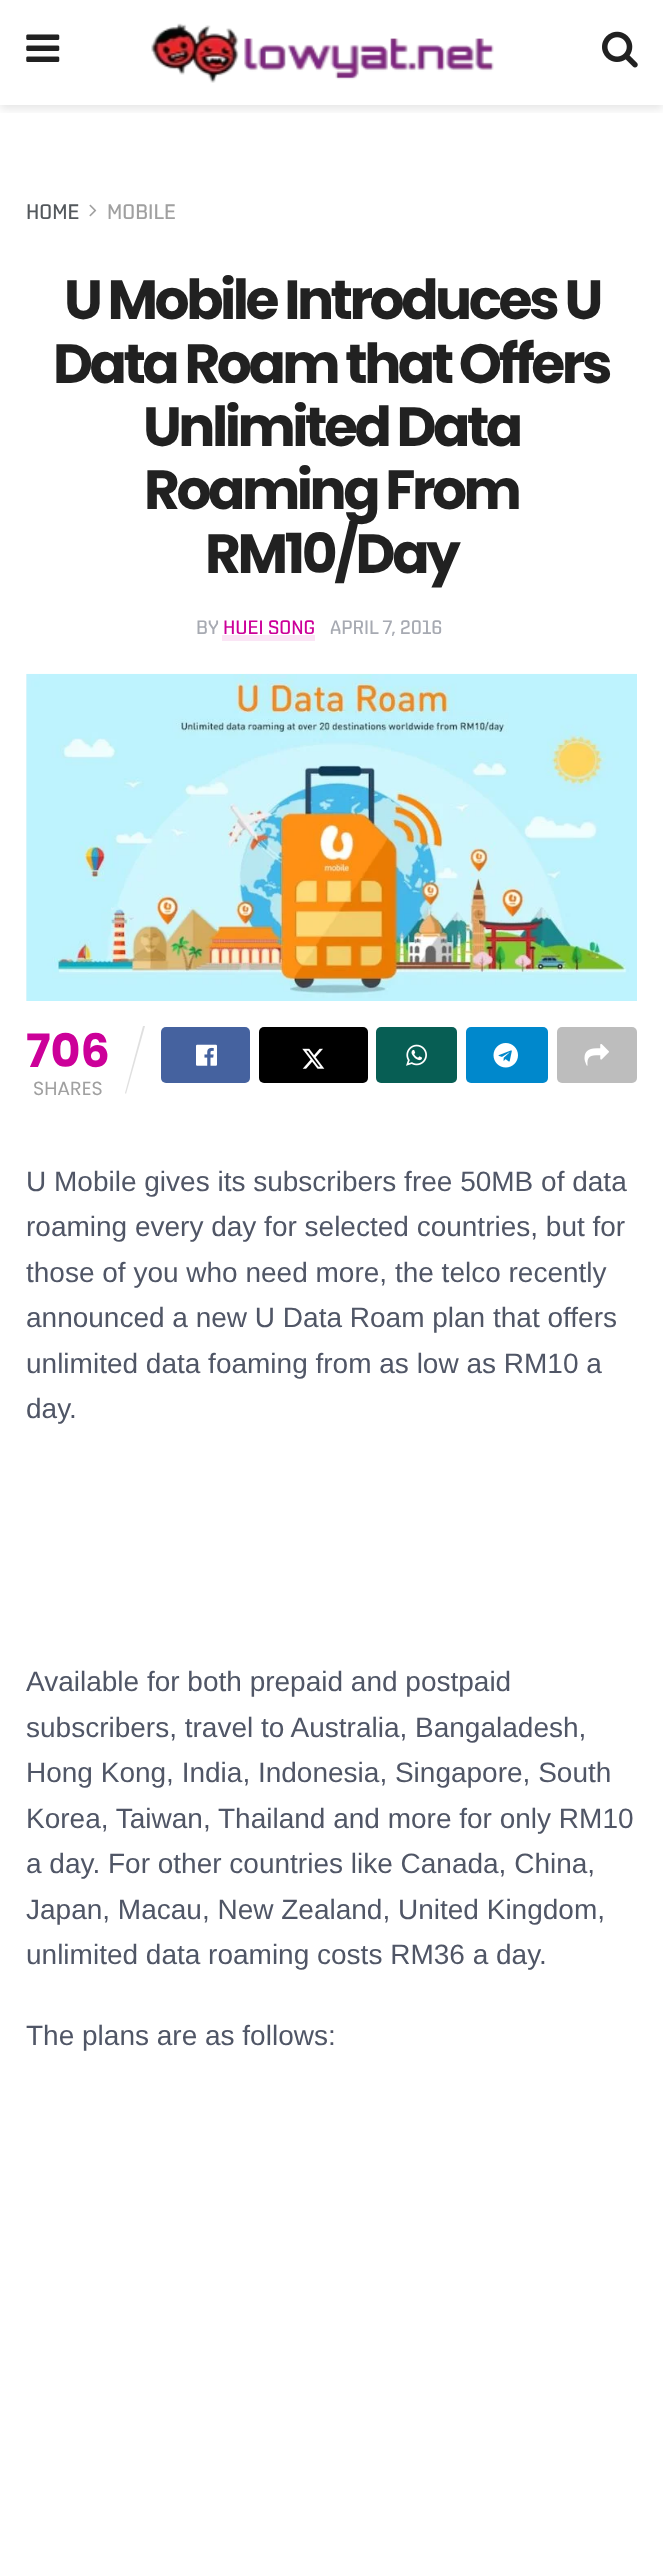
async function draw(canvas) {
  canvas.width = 663
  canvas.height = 2551
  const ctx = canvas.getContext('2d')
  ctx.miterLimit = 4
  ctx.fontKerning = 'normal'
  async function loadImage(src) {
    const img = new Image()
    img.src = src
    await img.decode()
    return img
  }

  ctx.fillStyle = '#fff'
  ctx.fillRect(0, 0, 663, 2551)
  ctx.save()
  ctx.beginPath()
  ctx.rect(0, 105, 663, 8)
  ctx.clip()
  ctx.fillStyle = '#0000001a'
  ctx.filter = 'blur(5px)'
  ctx.beginPath()
  ctx.rect(0, 4, 663, 105)
  ctx.fill()
  ctx.filter = 'none'
  ctx.restore()
  ctx.drawImage(await loadImage('image0.png'), 26, 34, 34, 28)
  ctx.drawImage(await loadImage('image1.png'), 151, 23, 343, 60)
  ctx.drawImage(await loadImage('image2.png'), 602, 31, 36, 37)
  ctx.font = '500 21px "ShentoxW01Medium"'
  ctx.fillStyle = '#53585c'
  ctx.fillText('HOME', 26, 219)
  ctx.drawImage(await loadImage('image3.png'), 89, 204, 8, 13)
  ctx.fillStyle = '#a0a0a0'
  ctx.fillText('MOBILE', 107, 219)
  ctx.letterSpacing = '-3.5px'
  ctx.font = 'bold 55.1px Poppins'
  ctx.fillStyle = '#212121'
  ctx.fillText('U Mobile Introduces U', 64, 319)
  ctx.fillText('Data Roam that Offers', 53, 383)
  ctx.fillText('Unlimited Data', 143, 446)
  ctx.fillText('Roaming From', 144, 509)
  ctx.fillText('RM10/Day', 205, 573)
  ctx.letterSpacing = '0px'
  ctx.font = '500 19.5px "ShentoxW01Medium"'
  ctx.fillStyle = '#a7aab2'
  ctx.fillText('BY', 196, 634)
  ctx.fillStyle = '#c09'
  ctx.fillText('HUEI SONG', 223, 634)
  ctx.fillStyle = '#fae5f5'
  ctx.fillRect(222, 635, 93, 6)
  ctx.fillStyle = '#a7aab2'
  ctx.fillText('APRIL 7, 2016', 330, 634)
  ctx.fillStyle = '#f7f7f7'
  ctx.fillRect(26, 674, 1, 327)
  ctx.drawImage(await loadImage('image4.png'), 26, 673, 611, 328)
  ctx.font = 'bold 46px Poppins'
  ctx.fillStyle = '#c09'
  ctx.fillText('706', 26, 1067)
  ctx.fillStyle = '#e0e0e0'
  ctx.beginPath()
  ctx.moveTo(143, 1026)
  ctx.lineTo(145, 1026)
  ctx.lineTo(126, 1094)
  ctx.lineTo(125, 1093)
  ctx.closePath()
  ctx.fill()
  ctx.font = '19px Poppins'
  ctx.fillStyle = '#a0a0a0'
  ctx.fillText('SHARES', 33, 1095)
  ctx.fillStyle = '#45629f'
  ctx.beginPath()
  ctx.roundRect(161, 1027, 89, 56, 5)
  ctx.fill()
  ctx.drawImage(await loadImage('image5.png'), 196, 1044, 21, 22)
  ctx.fillStyle = '#000'
  ctx.beginPath()
  ctx.roundRect(259, 1027, 109, 56, 5)
  ctx.fill()
  ctx.drawImage(await loadImage('image6.png'), 302, 1048, 23, 21)
  ctx.fillStyle = '#075e54'
  ctx.beginPath()
  ctx.roundRect(376, 1027, 81, 56, 5)
  ctx.fill()
  ctx.drawImage(await loadImage('image7.png'), 406, 1044, 21, 22)
  ctx.fillStyle = '#08c'
  ctx.beginPath()
  ctx.roundRect(466, 1027, 82, 56, 5)
  ctx.fill()
  ctx.drawImage(await loadImage('image8.png'), 493, 1043, 25, 25)
  ctx.fillStyle = '#bdbdbd'
  ctx.beginPath()
  ctx.roundRect(557, 1027, 80, 56, 5)
  ctx.fill()
  ctx.drawImage(await loadImage('image9.png'), 584, 1044, 25, 22)
  ctx.font = '28px Arimo'
  ctx.fillStyle = '#505666'
  ctx.fillText('U Mobile gives its subscribers free 50MB of data', 26, 1191)
  ctx.fillText('roaming every day for selected countries, but for', 26, 1236)
  ctx.fillText('those of you who need more, the telco recently', 26, 1282)
  ctx.fillText('announced a new U Data Roam plan that offers', 26, 1327)
  ctx.fillText('unlimited data foaming from as low as RM10 a', 26, 1373)
  ctx.fillText('day.', 26, 1418)
  ctx.fillText('Available for both prepaid and postpaid', 26, 1691)
  ctx.fillText('subscribers, travel to Australia, Bangaladesh,', 26, 1737)
  ctx.fillText('Hong Kong, India, Indonesia, Singapore, South', 26, 1782)
  ctx.fillText('Korea, Taiwan, Thailand and more for only RM10', 26, 1828)
  ctx.fillText('a day. For other countries like Canada, China,', 26, 1873)
  ctx.fillText('Japan, Macau, New Zealand, United Kingdom,', 26, 1919)
  ctx.fillText('unlimited data roaming costs RM36 a day.', 26, 1964)
  ctx.fillText('The plans are as follows:', 26, 2045)
}

draw(document.querySelector('canvas'))
